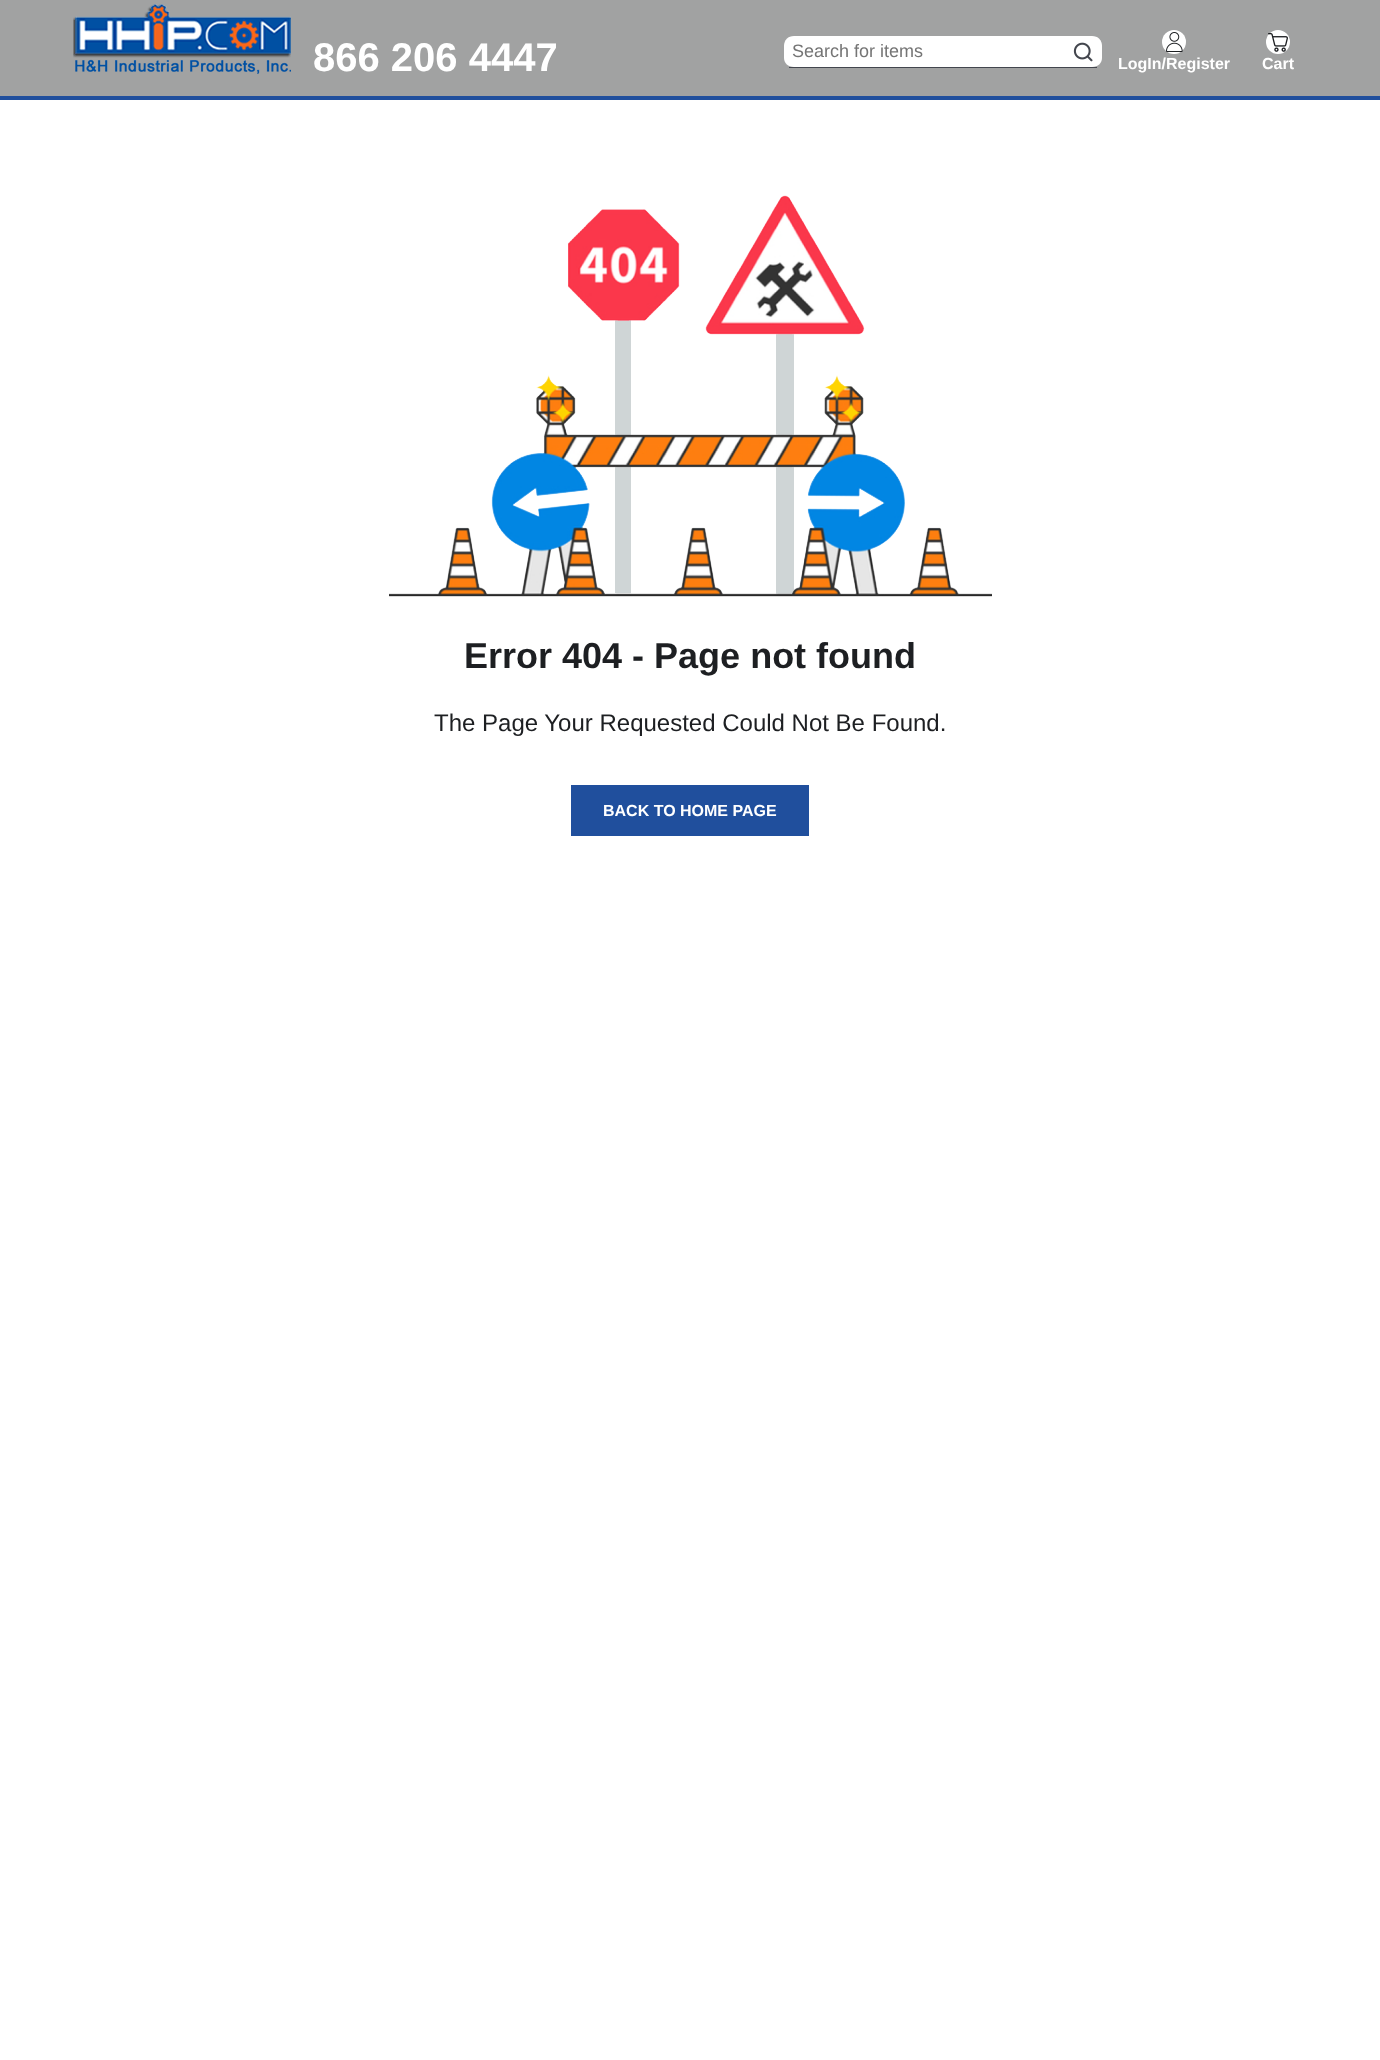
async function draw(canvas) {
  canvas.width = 1380
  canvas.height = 2060
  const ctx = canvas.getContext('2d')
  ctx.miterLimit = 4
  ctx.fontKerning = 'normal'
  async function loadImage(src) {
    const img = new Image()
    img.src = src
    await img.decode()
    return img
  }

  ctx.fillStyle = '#fff'
  ctx.fillRect(0, 0, 1380, 2060)
  ctx.fillStyle = '#a1a2a2'
  ctx.fillRect(0, 0, 1380, 96)
  ctx.drawImage(await loadImage('image0.png'), 73, 4, 218, 70)
  ctx.font = 'bold 40px Liberation Sans'
  ctx.fillStyle = '#fff'
  ctx.fillText('866 206 4447', 313, 71)
  ctx.beginPath()
  ctx.moveTo(794, 36)
  ctx.lineTo(1092, 36)
  ctx.bezierCurveTo(1098, 36, 1102, 40, 1102, 46)
  ctx.lineTo(1102, 58)
  ctx.bezierCurveTo(1102, 63, 1098, 67, 1092, 67)
  ctx.lineTo(794, 67)
  ctx.bezierCurveTo(788, 67, 784, 63, 784, 58)
  ctx.lineTo(784, 46)
  ctx.bezierCurveTo(784, 40, 788, 36, 794, 36)
  ctx.closePath()
  ctx.fill()
  ctx.fillStyle = '#43464e'
  ctx.fillRect(789, 67, 308, 1)
  ctx.font = '18px Liberation Sans'
  ctx.fillStyle = '#757575'
  ctx.fillText('Search for items', 792, 57)
  ctx.drawImage(await loadImage('image1.png'), 1073, 42, 20, 20)
  ctx.fillStyle = '#fff'
  ctx.beginPath()
  ctx.arc(1174, 42, 12, 0, 2 * Math.PI)
  ctx.fill()
  ctx.drawImage(await loadImage('image2.png'), 1166, 32, 17, 20)
  ctx.font = 'bold 16px Liberation Sans'
  ctx.fillText('LogIn/Register', 1118, 69)
  ctx.beginPath()
  ctx.arc(1278, 42, 12, 0, 2 * Math.PI)
  ctx.fill()
  ctx.drawImage(await loadImage('image3.png'), 1268, 33, 20, 19)
  ctx.fillText('Cart', 1262, 69)
  ctx.fillStyle = '#204f9d'
  ctx.fillRect(0, 96, 1380, 4)
  ctx.drawImage(await loadImage('image4.png'), 389, 195, 603, 402)
  ctx.font = 'bold 36px Liberation Sans'
  ctx.fillStyle = '#1d1f22'
  ctx.fillText('Error 404 - Page not found', 464, 668)
  ctx.font = '24px Liberation Sans'
  ctx.fillText('The Page Your Requested Could Not Be Found.', 434, 731)
  ctx.fillStyle = '#204f9d'
  ctx.fillRect(571, 785, 238, 51)
  ctx.font = 'bold 16px Liberation Sans'
  ctx.fillStyle = '#fff'
  ctx.fillText('BACK TO HOME PAGE', 603, 816)
}

draw(document.querySelector('canvas'))
